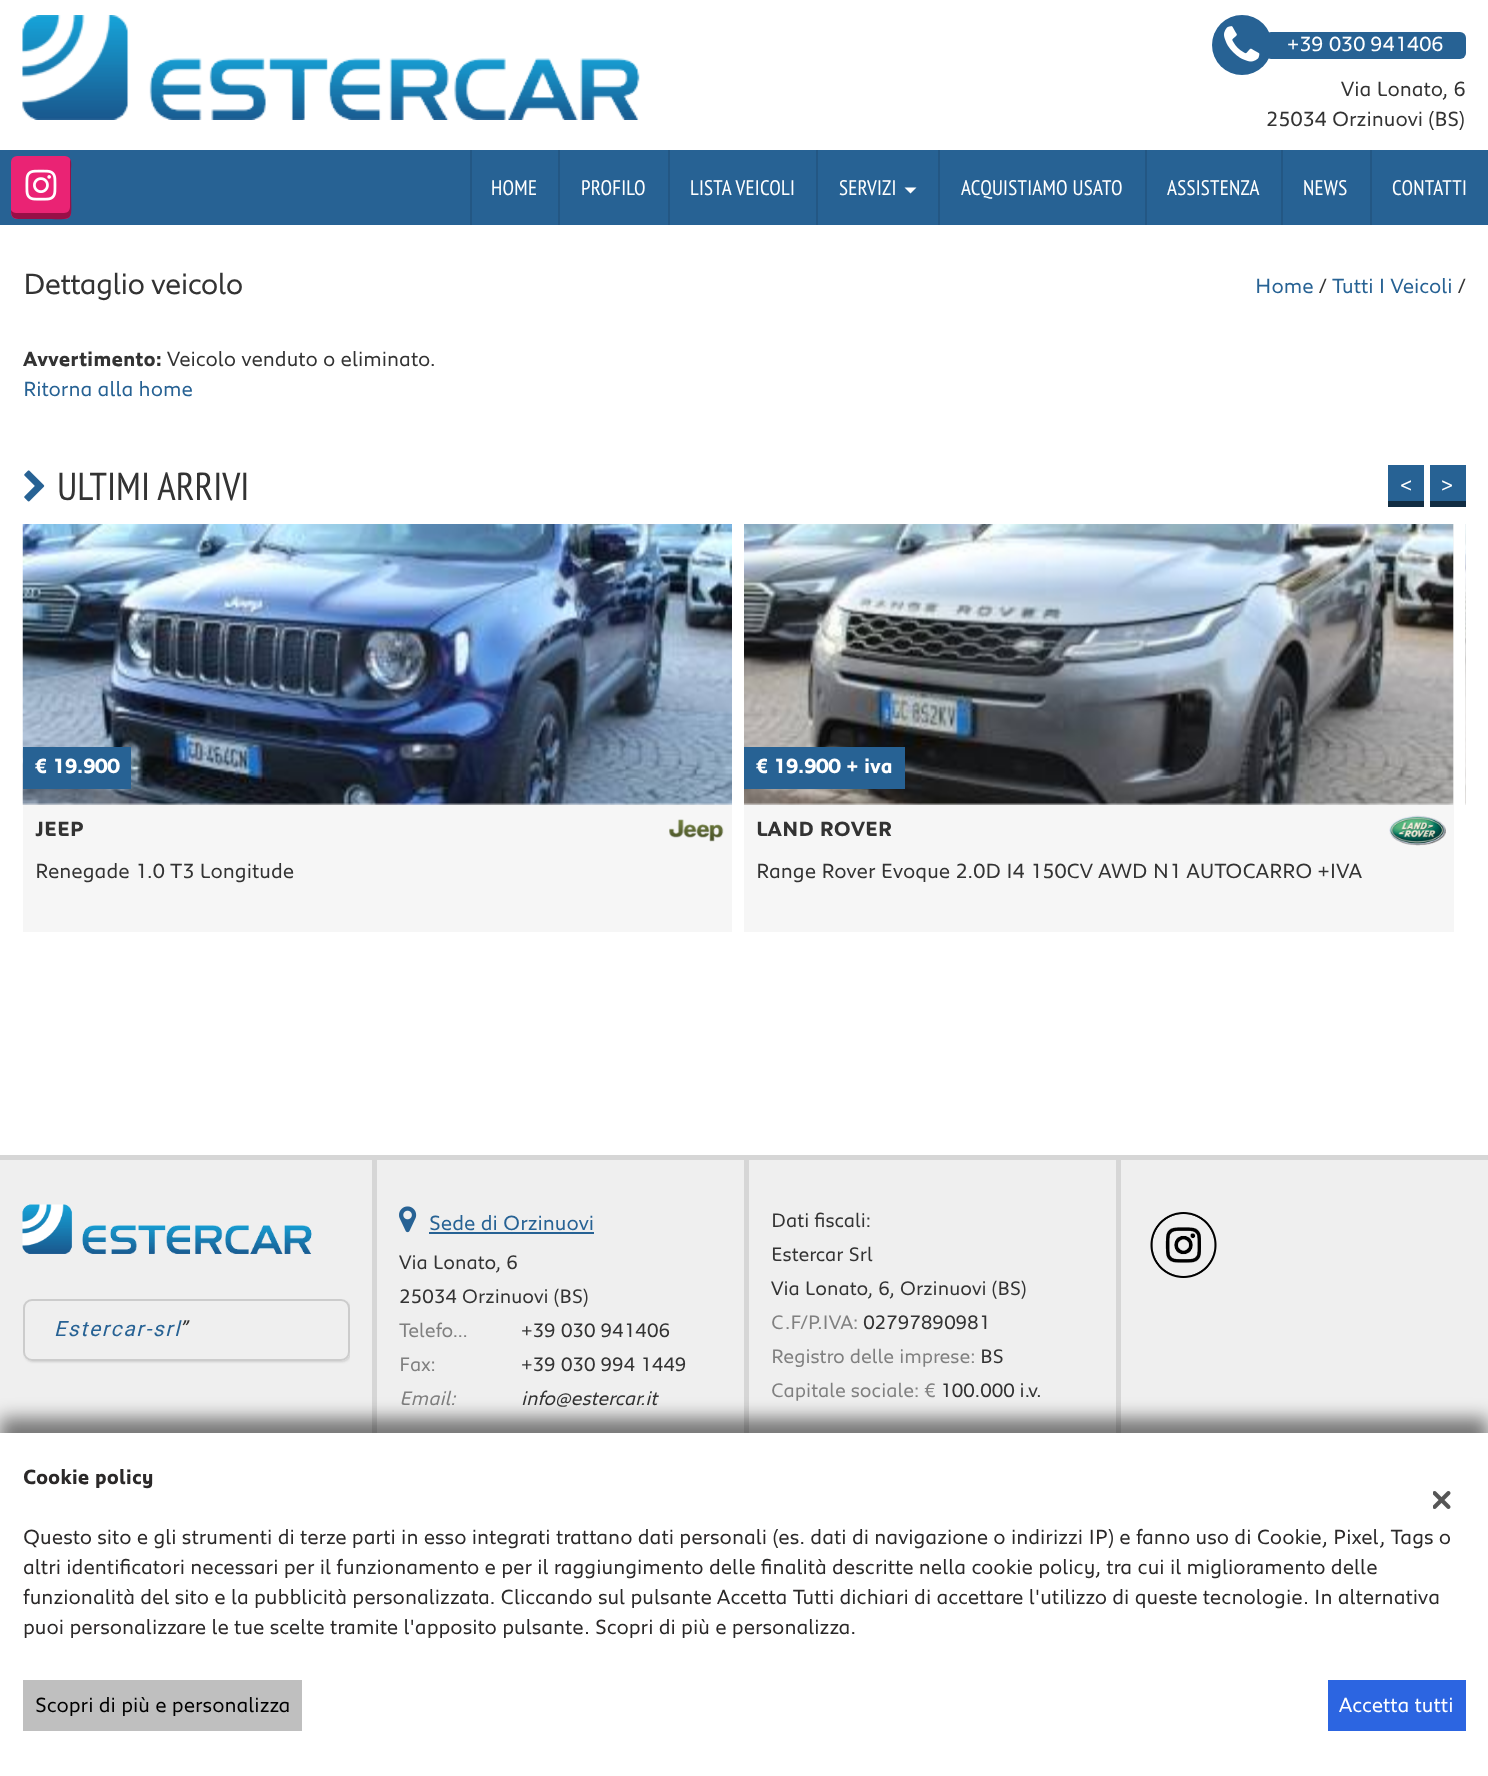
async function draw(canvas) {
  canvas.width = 1488
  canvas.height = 1776
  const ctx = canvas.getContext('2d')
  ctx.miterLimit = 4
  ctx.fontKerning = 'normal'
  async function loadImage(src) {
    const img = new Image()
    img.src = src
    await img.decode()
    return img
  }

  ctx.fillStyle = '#fff'
  ctx.fillRect(0, 0, 1488, 1776)
  ctx.drawImage(await loadImage('image0.png'), 22, 15, 618, 105)
  ctx.fillStyle = '#276294'
  ctx.beginPath()
  ctx.arc(1242, 45, 30, 0, 2 * Math.PI)
  ctx.fill()
  ctx.drawImage(await loadImage('image1.png'), 1224, 26, 36, 36)
  ctx.beginPath()
  ctx.roundRect(1265, 32, 201, 27, 6)
  ctx.fill()
  ctx.font = '21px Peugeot'
  ctx.fillStyle = '#fff'
  ctx.fillText('+39 030 941406', 1287, 51)
  ctx.fillStyle = '#333'
  ctx.fillText('Via Lonato, 6', 1341, 96)
  ctx.fillText('25034 Orzinuovi (BS)', 1266, 126)
  ctx.fillStyle = '#276294'
  ctx.fillRect(0, 150, 1488, 75)
  ctx.fillStyle = '#ea2374'
  ctx.beginPath()
  ctx.roundRect(11, 156, 60, 63, 6)
  ctx.fill()
  ctx.fillStyle = '#980f47'
  ctx.beginPath()
  ctx.moveTo(11, 210)
  ctx.bezierCurveTo(11, 220, 16, 219, 25, 219)
  ctx.lineTo(41, 219)
  ctx.bezierCurveTo(77, 219, 71, 224, 71, 188)
  ctx.lineTo(71, 170)
  ctx.bezierCurveTo(71, 168, 72, 162, 70, 159)
  ctx.lineTo(70, 207)
  ctx.bezierCurveTo(70, 210, 68, 213, 64, 213)
  ctx.lineTo(16, 213)
  ctx.bezierCurveTo(14, 213, 12, 212, 11, 210)
  ctx.closePath()
  ctx.fill()
  ctx.drawImage(await loadImage('image2.png'), 25, 169, 32, 32)
  ctx.fillStyle = '#235784'
  ctx.fillRect(470, 150, 2, 75)
  ctx.letterSpacing = '0.25px'
  ctx.font = '21px PT Sans Narrow'
  ctx.fillStyle = '#fff'
  ctx.fillText('HOME', 491, 195)
  ctx.fillStyle = '#235784'
  ctx.fillRect(558, 150, 2, 75)
  ctx.fillStyle = '#fff'
  ctx.fillText('PROFILO', 581, 195)
  ctx.fillStyle = '#235784'
  ctx.fillRect(668, 150, 2, 75)
  ctx.fillStyle = '#fff'
  ctx.fillText('LISTA VEICOLI', 690, 195)
  ctx.fillStyle = '#235784'
  ctx.fillRect(816, 150, 2, 75)
  ctx.fillStyle = '#fff'
  ctx.fillText('SERVIZI', 839, 195)
  ctx.beginPath()
  ctx.moveTo(904.5, 187.5)
  ctx.lineTo(916.5, 187.5)
  ctx.lineTo(910.5, 193.5)
  ctx.closePath()
  ctx.fill()
  ctx.fillStyle = '#235784'
  ctx.fillRect(938, 150, 2, 75)
  ctx.fillStyle = '#fff'
  ctx.fillText('ACQUISTIAMO USATO', 961, 195)
  ctx.fillStyle = '#235784'
  ctx.fillRect(1145, 150, 2, 75)
  ctx.fillStyle = '#fff'
  ctx.fillText('ASSISTENZA', 1167, 195)
  ctx.fillStyle = '#235784'
  ctx.fillRect(1281, 150, 2, 75)
  ctx.fillStyle = '#fff'
  ctx.fillText('NEWS', 1303, 195)
  ctx.fillStyle = '#235784'
  ctx.fillRect(1370, 150, 2, 75)
  ctx.fillStyle = '#fff'
  ctx.fillText('CONTATTI', 1392, 195)
  ctx.letterSpacing = '-0.6px'
  ctx.font = '30px Peugeot'
  ctx.fillStyle = '#333'
  ctx.fillText('Dettaglio veicolo', 23, 294)
  ctx.letterSpacing = '0px'
  ctx.font = '21px Peugeot'
  ctx.fillStyle = '#276294'
  ctx.fillText('Home', 1255, 293)
  ctx.fillStyle = '#333'
  ctx.fillText('/', 1319, 293)
  ctx.fillStyle = '#276294'
  ctx.fillText('Tutti I Veicoli', 1332, 293)
  ctx.fillStyle = '#333'
  ctx.fillText('/', 1458, 293)
  ctx.font = 'bold 21px Peugeot'
  ctx.fillText('Avvertimento:', 23, 366)
  ctx.font = '21px Peugeot'
  ctx.fillText('Veicolo venduto o eliminato.', 167, 366)
  ctx.fillStyle = '#276294'
  ctx.fillText('Ritorna alla home', 23, 396)
  ctx.drawImage(await loadImage('image3.png'), 24, 470, 21, 32)
  ctx.font = '39px PT Sans Narrow'
  ctx.fillStyle = '#333'
  ctx.fillText('ULTIMI ARRIVI', 57, 500)
  ctx.fillStyle = '#276294'
  ctx.fillRect(1388, 465, 36, 36)
  ctx.fillStyle = '#122d43'
  ctx.fillRect(1388, 501, 36, 6)
  ctx.font = '21px Peugeot'
  ctx.fillStyle = '#fff'
  ctx.fillText('<', 1400, 492)
  ctx.fillStyle = '#276294'
  ctx.fillRect(1430, 465, 36, 36)
  ctx.fillStyle = '#122d43'
  ctx.fillRect(1430, 501, 36, 6)
  ctx.fillStyle = '#fff'
  ctx.fillText('>', 1441, 492)
  ctx.drawImage(await loadImage('image4.png'), 1465, 524, 1, 281)
  ctx.fillStyle = '#f6f6f6'
  ctx.fillRect(23, 803, 709, 129)
  ctx.drawImage(await loadImage('image5.png'), 22, 524, 710, 281)
  ctx.fillStyle = '#276294'
  ctx.fillRect(23, 747, 108, 42)
  ctx.font = 'bold 21px Peugeot'
  ctx.fillStyle = '#fff'
  ctx.fillText('€ 19.900', 35, 773)
  ctx.fillStyle = '#333'
  ctx.fillText('JEEP', 35, 836)
  ctx.drawImage(await loadImage('image6.png'), 669, 819, 55, 23)
  ctx.font = '21px Peugeot'
  ctx.fillText('Renegade 1.0 T3 Longitude', 35, 878)
  ctx.fillStyle = '#f6f6f6'
  ctx.fillRect(744, 524, 710, 408)
  ctx.drawImage(await loadImage('image7.png'), 744, 524, 710, 281)
  ctx.fillStyle = '#276294'
  ctx.fillRect(744, 747, 161, 42)
  ctx.font = 'bold 21px Peugeot'
  ctx.fillStyle = '#fff'
  ctx.fillText('€ 19.900 + iva', 756, 773)
  ctx.fillStyle = '#333'
  ctx.fillText('LAND ROVER', 756, 836)
  ctx.drawImage(await loadImage('image8.png'), 1389, 815, 57, 31)
  ctx.font = '21px Peugeot'
  ctx.fillText('Range Rover Evoque 2.0D I4 150CV AWD N1 AUTOCARRO +IVA', 756, 878)
  ctx.fillStyle = '#efefef'
  ctx.fillRect(0, 1160, 1488, 273)
  ctx.fillStyle = '#d6d6d6'
  ctx.fillRect(0, 1155, 1488, 5)
  ctx.drawImage(await loadImage('image9.png'), 22, 1204, 290, 50)
  ctx.save()
  ctx.beginPath()
  ctx.rect(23, 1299, 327, 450)
  ctx.clip()
  ctx.beginPath()
  ctx.moveTo(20, 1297)
  ctx.lineTo(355, 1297)
  ctx.lineTo(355, 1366)
  ctx.lineTo(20, 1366)
  ctx.closePath()
  ctx.moveTo(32, 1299)
  ctx.lineTo(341, 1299)
  ctx.bezierCurveTo(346, 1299, 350, 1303, 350, 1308)
  ctx.lineTo(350, 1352)
  ctx.bezierCurveTo(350, 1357, 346, 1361, 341, 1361)
  ctx.lineTo(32, 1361)
  ctx.bezierCurveTo(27, 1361, 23, 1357, 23, 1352)
  ctx.lineTo(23, 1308)
  ctx.bezierCurveTo(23, 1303, 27, 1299, 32, 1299)
  ctx.closePath()
  ctx.clip('evenodd')
  ctx.fillStyle = '#ccc'
  ctx.filter = 'blur(1px)'
  ctx.beginPath()
  ctx.roundRect(24, 1301, 327, 61, 9)
  ctx.fill()
  ctx.filter = 'none'
  ctx.restore()
  ctx.beginPath()
  ctx.roundRect(24, 1300, 325, 60, 8)
  ctx.strokeStyle = '#ccc'
  ctx.lineWidth = 2
  ctx.stroke()
  ctx.letterSpacing = '1.75px'
  ctx.font = 'italic 21px Roboto'
  ctx.fillStyle = '#276294'
  ctx.fillText('Estercar-srl', 54, 1336)
  ctx.fillStyle = '#333'
  ctx.fillText('”', 179, 1336)
  ctx.fillStyle = '#d6d6d6'
  ctx.fillRect(372, 1160, 5, 273)
  ctx.drawImage(await loadImage('image10.png'), 399, 1206, 18, 27)
  ctx.letterSpacing = '0px'
  ctx.font = '21px Peugeot'
  ctx.fillStyle = '#276294'
  ctx.fillText('Sede di Orzinuovi', 429, 1230)
  ctx.fillRect(429, 1232, 165, 2)
  ctx.font = '20px Peugeot'
  ctx.fillStyle = '#333'
  ctx.fillText('Via Lonato, 6', 399, 1269)
  ctx.fillText('25034 Orzinuovi (BS)', 399, 1303)
  ctx.fillStyle = '#808080'
  ctx.fillText('Telefo…', 399, 1337)
  ctx.fillStyle = '#333'
  ctx.fillText('+39 030 941406', 521, 1337)
  ctx.fillStyle = '#808080'
  ctx.fillText('Fax:', 399, 1371)
  ctx.fillStyle = '#333'
  ctx.fillText('+39 030 994 1449', 521, 1371)
  ctx.font = 'italic 20px Peugeot'
  ctx.fillStyle = '#808080'
  ctx.fillText('Email:', 399, 1405)
  ctx.fillStyle = '#333'
  ctx.fillText('info@estercar.it', 521, 1405)
  ctx.fillStyle = '#d6d6d6'
  ctx.fillRect(744, 1160, 5, 273)
  ctx.font = '20px Peugeot'
  ctx.fillStyle = '#333'
  ctx.fillText('Dati fiscali:', 771, 1227)
  ctx.fillText('Estercar Srl', 771, 1261)
  ctx.fillText('Via Lonato, 6, Orzinuovi (BS)', 771, 1295)
  ctx.fillStyle = '#808080'
  ctx.fillText('C.F/P.IVA:', 771, 1329)
  ctx.fillStyle = '#333'
  ctx.fillText('02797890981', 863, 1329)
  ctx.fillStyle = '#808080'
  ctx.fillText('Registro delle imprese:', 771, 1363)
  ctx.fillStyle = '#333'
  ctx.fillText('BS', 980, 1363)
  ctx.fillStyle = '#808080'
  ctx.fillText('Capitale sociale: €', 771, 1397)
  ctx.fillStyle = '#333'
  ctx.fillText('100.000 i.v.', 940, 1397)
  ctx.fillStyle = '#d6d6d6'
  ctx.fillRect(1116, 1160, 5, 273)
  ctx.drawImage(await loadImage('image11.png'), 1150, 1212, 67, 66)
  ctx.fillStyle = '#00000080'
  ctx.filter = 'blur(9px)'
  ctx.beginPath()
  ctx.rect(0, 1418, 1488, 343)
  ctx.fill()
  ctx.filter = 'none'
  ctx.fillStyle = '#fff'
  ctx.fillRect(0, 1433, 1488, 343)
  ctx.font = 'bold 21px Peugeot'
  ctx.fillStyle = '#2b2929'
  ctx.fillText('Cookie policy', 23, 1484)
  ctx.font = '21px Peugeot'
  ctx.fillText('Questo sito e gli strumenti di terze parti in esso integrati trattano dati personali (es. dati di navigazione o indirizzi IP) e fanno uso di Cookie, Pixel, Tags o', 23, 1544)
  ctx.fillText('altri identificatori necessari per il funzionamento e per il raggiungimento delle finalità descritte nella cookie policy, tra cui il miglioramento delle', 23, 1574)
  ctx.fillText('funzionalità del sito e la pubblicità personalizzata. Cliccando sul pulsante Accetta Tutti dichiari di accettare l\'utilizzo di queste tecnologie. In alternativa', 23, 1604)
  ctx.fillText('puoi personalizzare le tue scelte tramite l\'apposito pulsante. Scopri di più e personalizza.', 23, 1634)
  ctx.fillStyle = '#bfbfbf'
  ctx.fillRect(23, 1680, 279, 51)
  ctx.fillStyle = '#000'
  ctx.fillText('Scopri di più e personalizza', 35, 1712)
  ctx.fillStyle = '#2c65e1'
  ctx.fillRect(1328, 1680, 138, 51)
  ctx.fillStyle = '#fff'
  ctx.fillText('Accetta tutti', 1339, 1712)
  ctx.drawImage(await loadImage('image12.png'), 1433, 1491, 18, 18)
}

draw(document.querySelector('canvas'))
